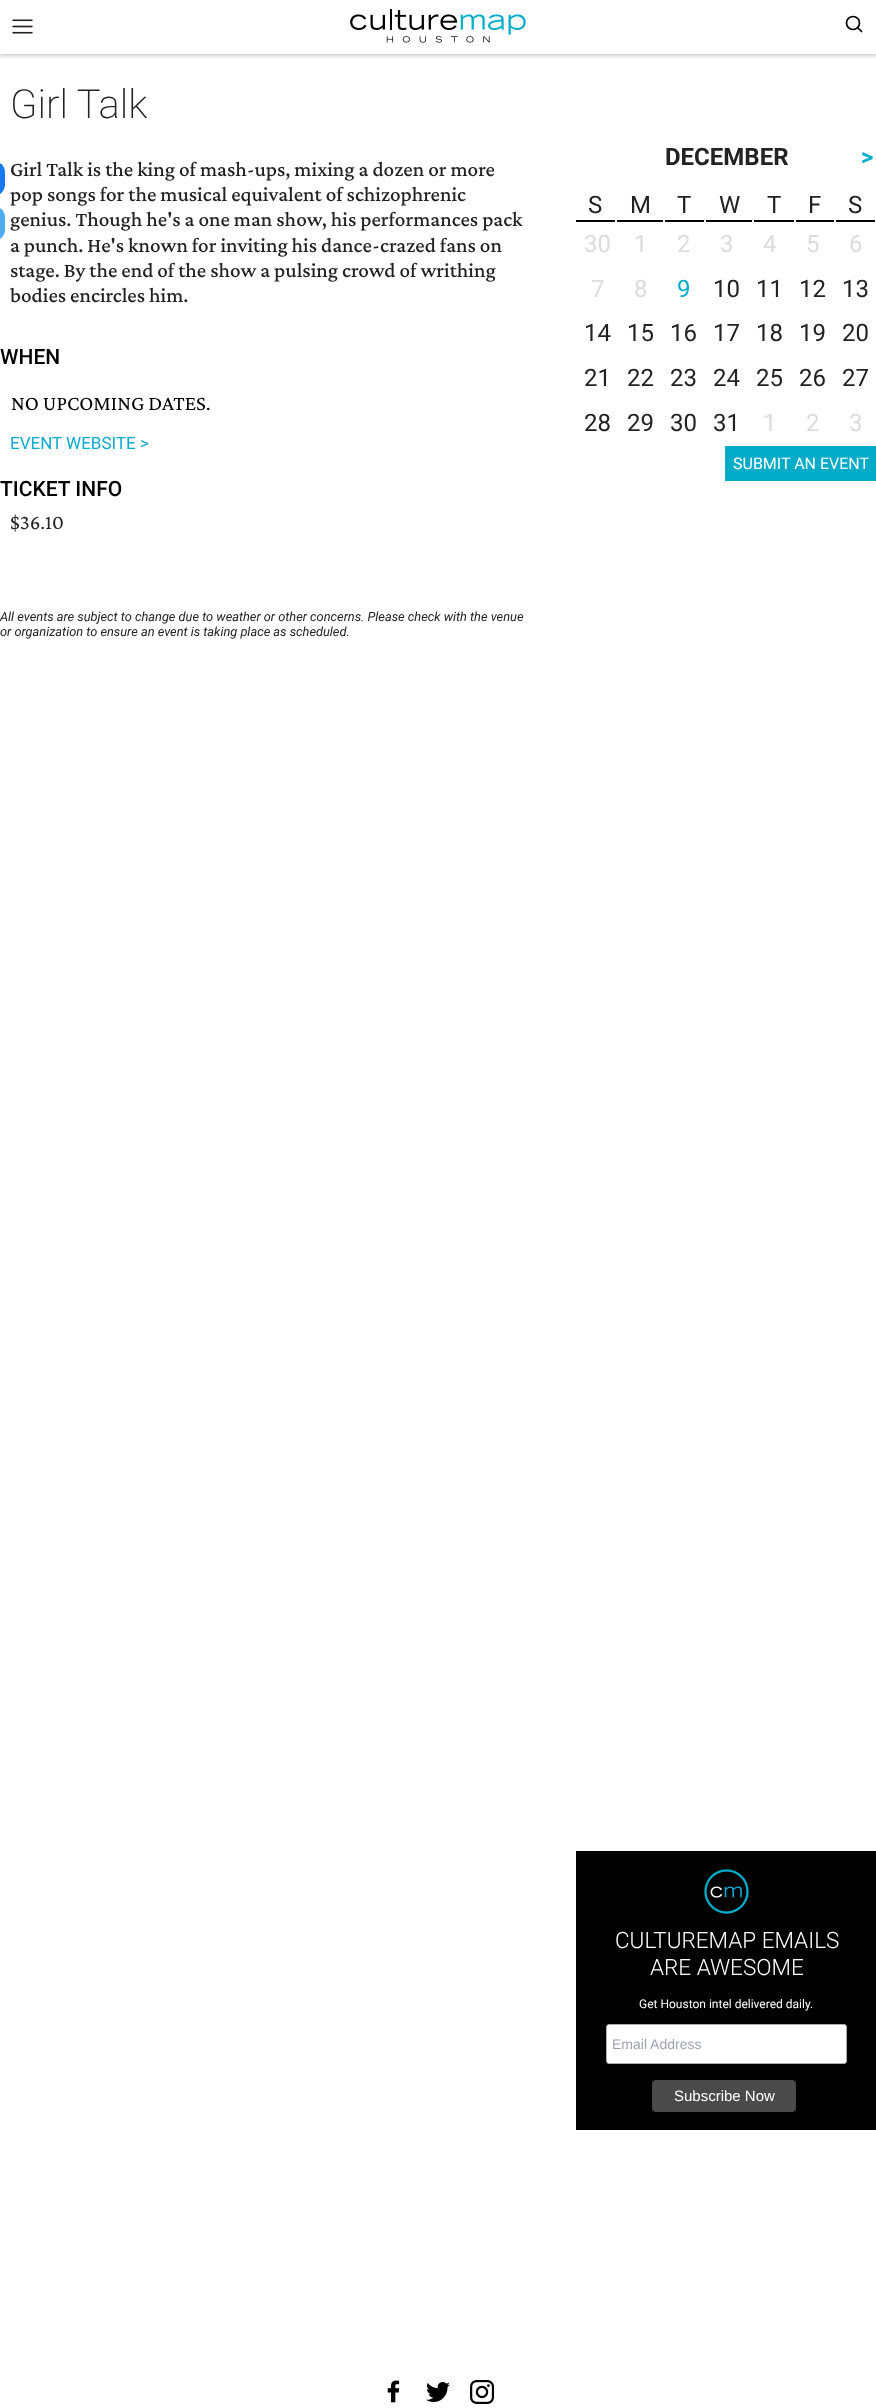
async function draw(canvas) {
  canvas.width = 876
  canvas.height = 2408
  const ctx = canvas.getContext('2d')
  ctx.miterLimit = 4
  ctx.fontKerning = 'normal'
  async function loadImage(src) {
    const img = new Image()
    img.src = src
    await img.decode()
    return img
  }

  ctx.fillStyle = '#fff'
  ctx.fillRect(0, 0, 876, 2408)
  ctx.save()
  ctx.beginPath()
  ctx.rect(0, 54, 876, 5)
  ctx.clip()
  ctx.fillStyle = '#00000047'
  ctx.filter = 'blur(2.5px)'
  ctx.beginPath()
  ctx.rect(-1, -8, 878, 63)
  ctx.fill()
  ctx.filter = 'none'
  ctx.restore()
  ctx.drawImage(await loadImage('image0.png'), 12, 19, 21, 15)
  ctx.drawImage(await loadImage('image1.png'), 350, 9, 176, 34)
  ctx.beginPath()
  ctx.arc(853, 23, 6.5, 0, 2 * Math.PI)
  ctx.strokeStyle = '#000'
  ctx.lineWidth = 1.7
  ctx.stroke()
  ctx.beginPath()
  ctx.moveTo(861.5, 31.5)
  ctx.lineTo(858, 28)
  ctx.lineCap = 'round'
  ctx.lineJoin = 'round'
  ctx.stroke()
  ctx.font = '200 40px Roboto'
  ctx.fillStyle = '#222'
  ctx.fillText('Girl Talk', 10, 118)
  ctx.fillStyle = '#1777f2'
  ctx.beginPath()
  ctx.roundRect(-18, 161, 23, 35, 17.5)
  ctx.fill()
  ctx.fillStyle = '#50abf1'
  ctx.beginPath()
  ctx.roundRect(-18, 206, 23, 35, 17.5)
  ctx.fill()
  ctx.font = '500 21px Crimson Pro'
  ctx.fillStyle = '#222'
  ctx.fillText('Girl Talk is the king of mash-ups, mixing a dozen or more', 10, 176)
  ctx.fillText('pop songs for the musical equivalent of schizophrenic', 10, 201)
  ctx.fillText('genius. Though he\'s a one man show, his performances pack', 10, 226)
  ctx.fillText('a punch. He\'s known for inviting his dance-crazed fans on', 10, 252)
  ctx.fillText('stage. By the end of the show a pulsing crowd of writhing', 10, 277)
  ctx.fillText('bodies encircles him.', 10, 302)
  ctx.font = '500 21px Roboto'
  ctx.fillStyle = '#000'
  ctx.fillText('WHEN', 0, 364)
  ctx.font = '21px Crimson Pro'
  ctx.fillText('NO UPCOMING DATES.', 11, 410)
  ctx.font = '17px Roboto'
  ctx.fillStyle = '#0ea9cf'
  ctx.fillText('EVENT WEBSITE >', 10, 449)
  ctx.font = '500 21px Roboto'
  ctx.fillStyle = '#000'
  ctx.fillText('TICKET INFO', 0, 496)
  ctx.font = '21px Crimson Pro'
  ctx.fillStyle = '#222'
  ctx.fillText('$36.10', 10, 529)
  ctx.font = 'italic 12.8px Roboto'
  ctx.fillText('All events are subject to change due to weather or other concerns. Please check with the venue', 0, 621)
  ctx.fillText('or organization to ensure an event is taking place as scheduled.', 0, 636)
  ctx.font = 'bold 24px Roboto'
  ctx.fillText('DECEMBER', 665, 165)
  ctx.fillStyle = '#02abc8'
  ctx.fillText('>', 861, 165)
  ctx.fillStyle = '#000'
  ctx.fillRect(576, 220, 39, 2)
  ctx.font = '24px Roboto'
  ctx.fillStyle = '#222'
  ctx.fillText('S', 588, 213)
  ctx.fillStyle = '#000'
  ctx.fillRect(617, 220, 46, 2)
  ctx.fillStyle = '#222'
  ctx.fillText('M', 630, 213)
  ctx.fillStyle = '#000'
  ctx.fillRect(665, 220, 39, 2)
  ctx.fillStyle = '#222'
  ctx.fillText('T', 677, 213)
  ctx.fillStyle = '#000'
  ctx.fillRect(706, 220, 46, 2)
  ctx.fillStyle = '#222'
  ctx.fillText('W', 719, 213)
  ctx.fillStyle = '#000'
  ctx.fillRect(754, 220, 40, 2)
  ctx.fillStyle = '#222'
  ctx.fillText('T', 767, 213)
  ctx.fillStyle = '#000'
  ctx.fillRect(796, 220, 38, 2)
  ctx.fillStyle = '#222'
  ctx.fillText('F', 808, 213)
  ctx.fillStyle = '#000'
  ctx.fillRect(836, 220, 39, 2)
  ctx.fillStyle = '#222'
  ctx.fillText('S', 848, 213)
  ctx.fillStyle = '#dcdcdc'
  ctx.fillText('30', 584, 252)
  ctx.fillText('1', 634, 252)
  ctx.fillText('2', 677, 252)
  ctx.fillText('3', 720, 252)
  ctx.fillText('4', 763, 252)
  ctx.fillText('5', 806, 252)
  ctx.fillText('6', 849, 252)
  ctx.fillText('7', 591, 297)
  ctx.fillText('8', 634, 297)
  ctx.fillStyle = '#02abc8'
  ctx.fillText('9', 677, 297)
  ctx.fillStyle = '#222'
  ctx.fillText('10', 713, 297)
  ctx.fillText('11', 756, 297)
  ctx.fillText('12', 799, 297)
  ctx.fillText('13', 842, 297)
  ctx.fillText('14', 584, 341)
  ctx.fillText('15', 627, 341)
  ctx.fillText('16', 670, 341)
  ctx.fillText('17', 713, 341)
  ctx.fillText('18', 756, 341)
  ctx.fillText('19', 799, 341)
  ctx.fillText('20', 842, 341)
  ctx.fillText('21', 584, 386)
  ctx.fillText('22', 627, 386)
  ctx.fillText('23', 670, 386)
  ctx.fillText('24', 713, 386)
  ctx.fillText('25', 756, 386)
  ctx.fillText('26', 799, 386)
  ctx.fillText('27', 842, 386)
  ctx.fillText('28', 584, 431)
  ctx.fillText('29', 627, 431)
  ctx.fillText('30', 670, 431)
  ctx.fillText('31', 713, 431)
  ctx.fillStyle = '#dcdcdc'
  ctx.fillText('1', 763, 431)
  ctx.fillText('2', 806, 431)
  ctx.fillText('3', 849, 431)
  ctx.fillStyle = '#02abc8'
  ctx.fillRect(725, 446, 151, 35)
  ctx.font = '16px Roboto'
  ctx.fillStyle = '#fff'
  ctx.fillText('SUBMIT AN EVENT', 733, 469)
  ctx.fillStyle = '#000'
  ctx.fillRect(576, 1851, 300, 279)
  ctx.drawImage(await loadImage('image2.png'), 704, 1869, 45, 45)
  ctx.font = '300 22.5px Roboto'
  ctx.fillStyle = '#fff'
  ctx.fillText('CULTUREMAP EMAILS', 615, 1948)
  ctx.fillText('ARE AWESOME', 650, 1975)
  ctx.font = '12px Roboto'
  ctx.fillText('Get Houston intel delivered daily.', 639, 2008)
  ctx.beginPath()
  ctx.roundRect(606.5, 2024.5, 240, 39, 2.5)
  ctx.fill()
  ctx.strokeStyle = '#abb0b2'
  ctx.lineWidth = 1
  ctx.lineJoin = 'miter'
  ctx.stroke()
  ctx.font = '14px Liberation Sans'
  ctx.fillStyle = '#9ca3af'
  ctx.fillText('Email Address', 612, 2049)
  ctx.fillStyle = '#4a4a4a'
  ctx.beginPath()
  ctx.roundRect(652, 2080, 144, 32, 4)
  ctx.fill()
  ctx.font = '15px Liberation Sans'
  ctx.fillStyle = '#fff'
  ctx.fillText('Subscribe Now', 674, 2101)
  ctx.drawImage(await loadImage('image3.png'), 387, 2380, 13, 23)
  ctx.drawImage(await loadImage('image4.png'), 426, 2382, 24, 20)
  ctx.drawImage(await loadImage('image5.png'), 470, 2380, 24, 24)
}

draw(document.querySelector('canvas'))
